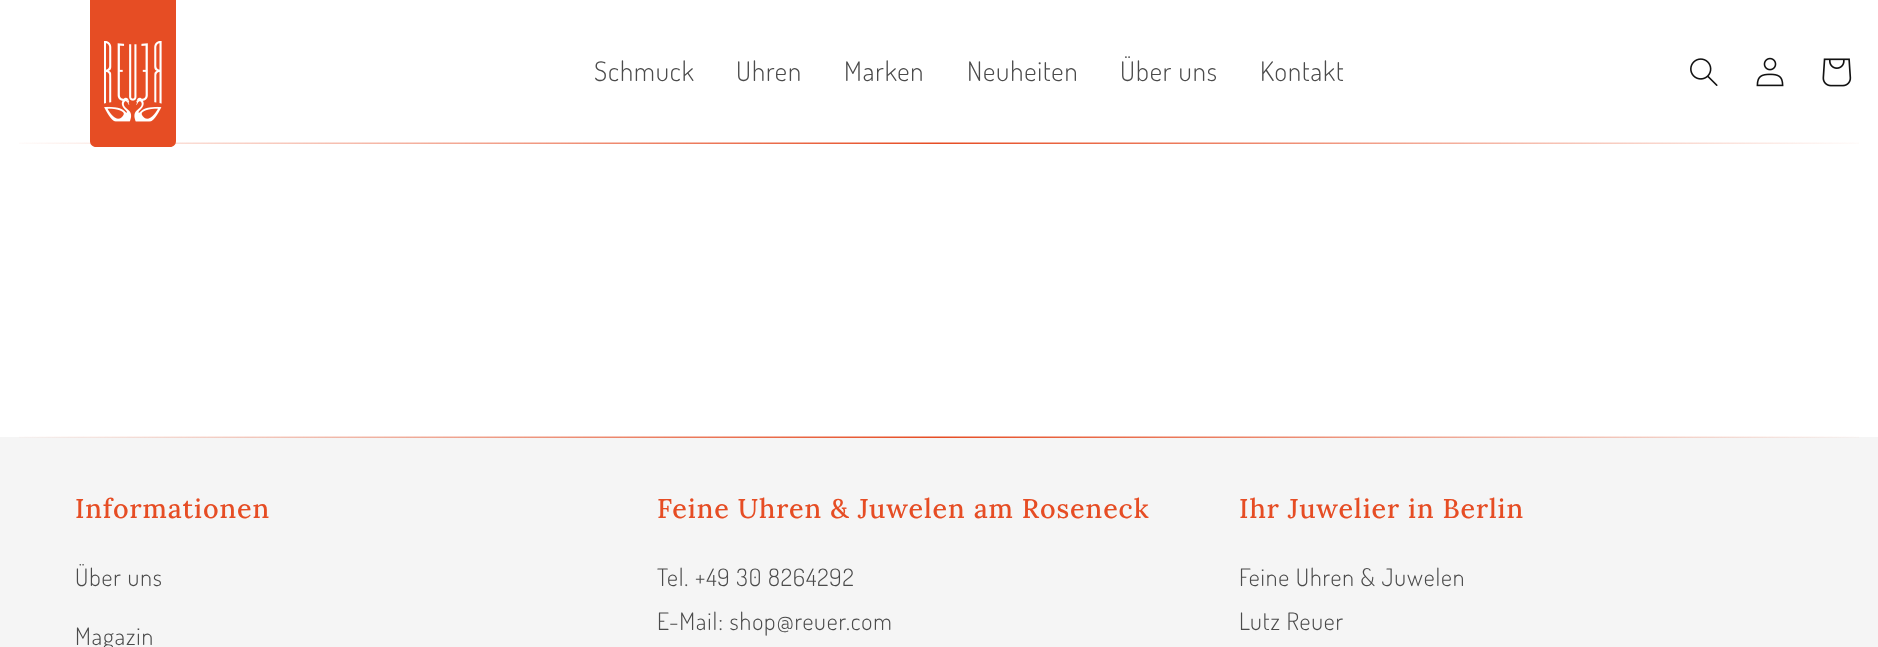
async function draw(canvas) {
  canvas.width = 1878
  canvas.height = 647
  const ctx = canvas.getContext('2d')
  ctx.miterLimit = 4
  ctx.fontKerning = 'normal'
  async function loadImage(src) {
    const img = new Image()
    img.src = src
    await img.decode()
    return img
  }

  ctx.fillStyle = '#fff'
  ctx.fillRect(0, 0, 1878, 647)
  ctx.drawImage(await loadImage('image0.png'), 19, 142, 1840, 2)
  ctx.fillStyle = '#e64d24'
  ctx.beginPath()
  ctx.moveTo(90, -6)
  ctx.lineTo(176, -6)
  ctx.lineTo(176, 141)
  ctx.bezierCurveTo(176, 144.5, 173.5, 147, 170, 147)
  ctx.lineTo(96, 147)
  ctx.bezierCurveTo(92.5, 147, 90, 144.5, 90, 141)
  ctx.closePath()
  ctx.fill()
  ctx.drawImage(await loadImage('image1.png'), 104, 41, 58, 81)
  ctx.letterSpacing = '0.9px'
  ctx.font = '300 27px Dosis'
  ctx.fillStyle = '#4b4b4b'
  ctx.fillText('Schmuck', 594, 81)
  ctx.fillText('Uhren', 736, 81)
  ctx.fillText('Marken', 844, 81)
  ctx.fillText('Neuheiten', 967, 81)
  ctx.fillText('Über uns', 1120, 81)
  ctx.fillText('Kontakt', 1260, 81)
  ctx.drawImage(await loadImage('image2.png'), 1690, 58, 28, 28)
  ctx.drawImage(await loadImage('image3.png'), 1756, 57, 28, 30)
  ctx.drawImage(await loadImage('image4.png'), 1822, 58, 30, 29)
  ctx.fillStyle = '#f5f5f5'
  ctx.fillRect(0, 437, 1878, 210)
  ctx.drawImage(await loadImage('image5.png'), 19, 436, 1840, 2)
  ctx.font = '500 27px Lora'
  ctx.fillStyle = '#e64d24'
  ctx.fillText('Informationen', 75, 518)
  ctx.font = '300 24px Dosis'
  ctx.fillStyle = '#4b4b4b'
  ctx.fillText('Über uns', 75, 586)
  ctx.fillText('Magazin', 75, 645)
  ctx.font = '500 27px Lora'
  ctx.fillStyle = '#e64d24'
  ctx.fillText('Feine Uhren & Juwelen am Roseneck', 657, 518)
  ctx.font = '300 24px Dosis'
  ctx.fillStyle = '#4b4b4b'
  ctx.fillText('Tel. +49 30 8264292', 657, 586)
  ctx.fillText('E-Mail: shop@reuer.com', 657, 630)
  ctx.font = '500 27px Lora'
  ctx.fillStyle = '#e64d24'
  ctx.fillText('Ihr Juwelier in Berlin', 1239, 518)
  ctx.font = '300 24px Dosis'
  ctx.fillStyle = '#4b4b4b'
  ctx.fillText('Feine Uhren & Juwelen', 1239, 586)
  ctx.fillText('Lutz Reuer', 1239, 630)
}

draw(document.querySelector('canvas'))
